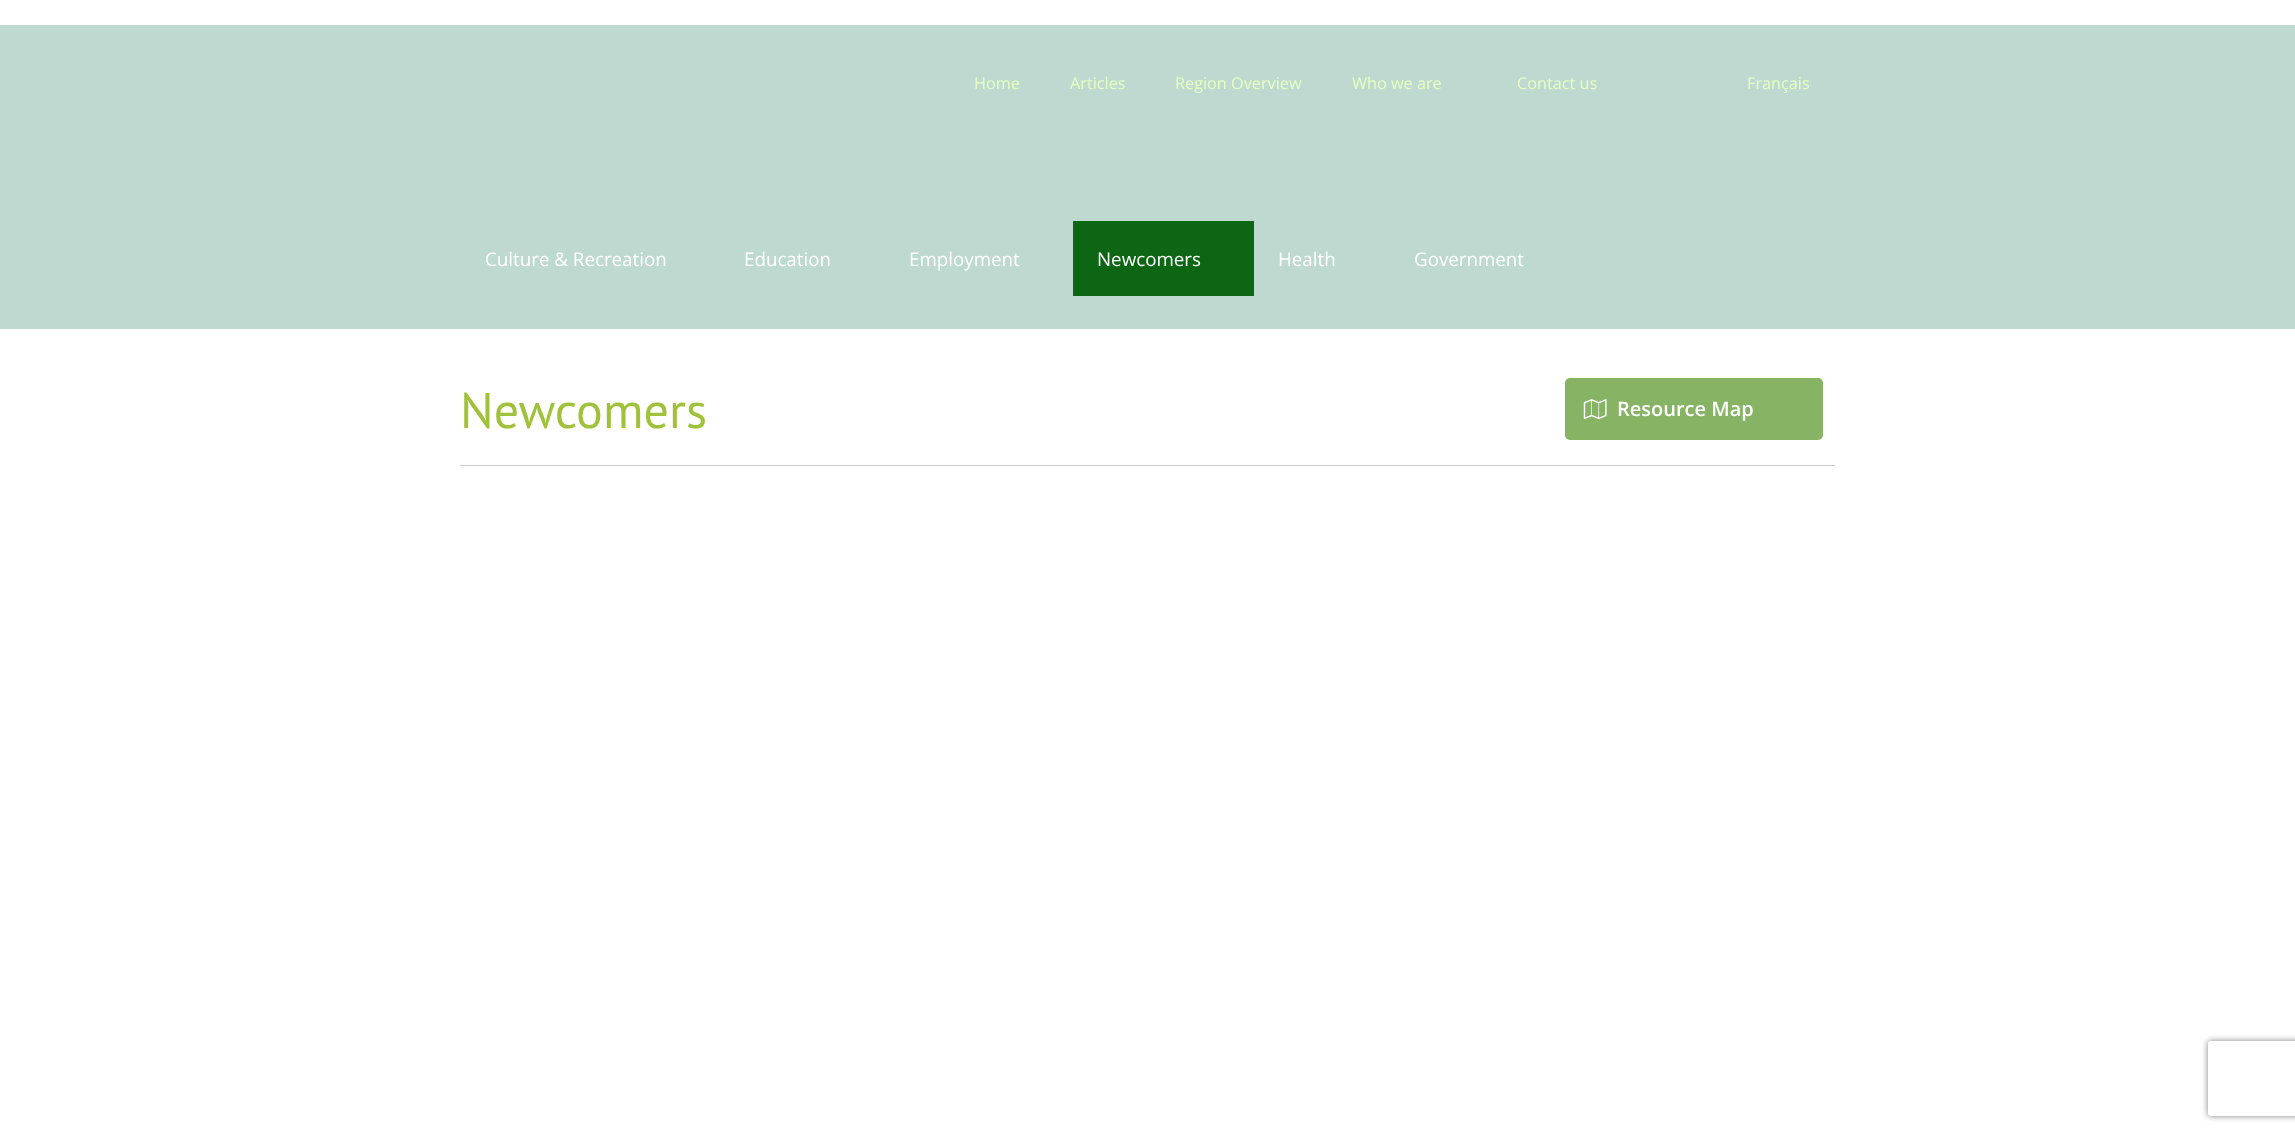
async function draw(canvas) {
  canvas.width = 2295
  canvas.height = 1133
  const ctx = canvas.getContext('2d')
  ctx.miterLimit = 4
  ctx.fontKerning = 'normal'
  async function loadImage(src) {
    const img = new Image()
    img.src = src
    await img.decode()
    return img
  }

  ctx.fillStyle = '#fff'
  ctx.fillRect(0, 0, 2295, 1133)
  ctx.fillStyle = '#bedad0'
  ctx.fillRect(0, 25, 2295, 304)
  ctx.font = '16.25px Open Sans'
  ctx.fillStyle = '#e5ffbf'
  ctx.fillText('Home', 974, 89)
  ctx.fillText('Articles', 1070, 89)
  ctx.fillText('Region Overview', 1175, 89)
  ctx.fillText('Who we are', 1352, 89)
  ctx.fillText('Contact us', 1517, 89)
  ctx.fillText('Français', 1747, 89)
  ctx.font = '18.75px Open Sans'
  ctx.fillStyle = '#fff'
  ctx.fillText('Culture & Recreation', 485, 266)
  ctx.fillText('Education', 744, 266)
  ctx.fillText('Employment', 909, 266)
  ctx.fillStyle = '#0c6613'
  ctx.fillRect(1073, 221, 181, 75)
  ctx.fillStyle = '#fff'
  ctx.fillText('Newcomers', 1097, 266)
  ctx.fillText('Health', 1278, 266)
  ctx.fillText('Government', 1414, 266)
  ctx.fillStyle = '#ccc'
  ctx.fillRect(460, 465, 1375, 1)
  ctx.font = '50px PT Sans'
  ctx.fillStyle = '#9fc23a'
  ctx.fillText('Newcomers', 460, 428)
  ctx.fillStyle = '#87b364'
  ctx.beginPath()
  ctx.roundRect(1565, 378, 258, 62, 5)
  ctx.fill()
  ctx.drawImage(await loadImage('image0.png'), 1583, 399, 24, 21)
  ctx.font = '600 20px Open Sans'
  ctx.fillStyle = '#fff'
  ctx.fillText('Resource Map', 1617, 416)
  ctx.save()
  ctx.beginPath()
  ctx.moveTo(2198, 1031)
  ctx.lineTo(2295, 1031)
  ctx.lineTo(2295, 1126)
  ctx.lineTo(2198, 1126)
  ctx.closePath()
  ctx.moveTo(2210.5, 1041)
  ctx.lineTo(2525.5, 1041)
  ctx.bezierCurveTo(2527, 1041, 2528, 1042, 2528, 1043.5)
  ctx.lineTo(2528, 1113.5)
  ctx.bezierCurveTo(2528, 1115, 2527, 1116, 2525.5, 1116)
  ctx.lineTo(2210.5, 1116)
  ctx.bezierCurveTo(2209, 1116, 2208, 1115, 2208, 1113.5)
  ctx.lineTo(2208, 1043.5)
  ctx.bezierCurveTo(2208, 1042, 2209, 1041, 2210.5, 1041)
  ctx.closePath()
  ctx.clip('evenodd')
  ctx.fillStyle = '#808080'
  ctx.filter = 'blur(3px)'
  ctx.beginPath()
  ctx.roundRect(2208, 1041, 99, 75, 2.5)
  ctx.fill()
  ctx.filter = 'none'
  ctx.restore()
}

draw(document.querySelector('canvas'))
